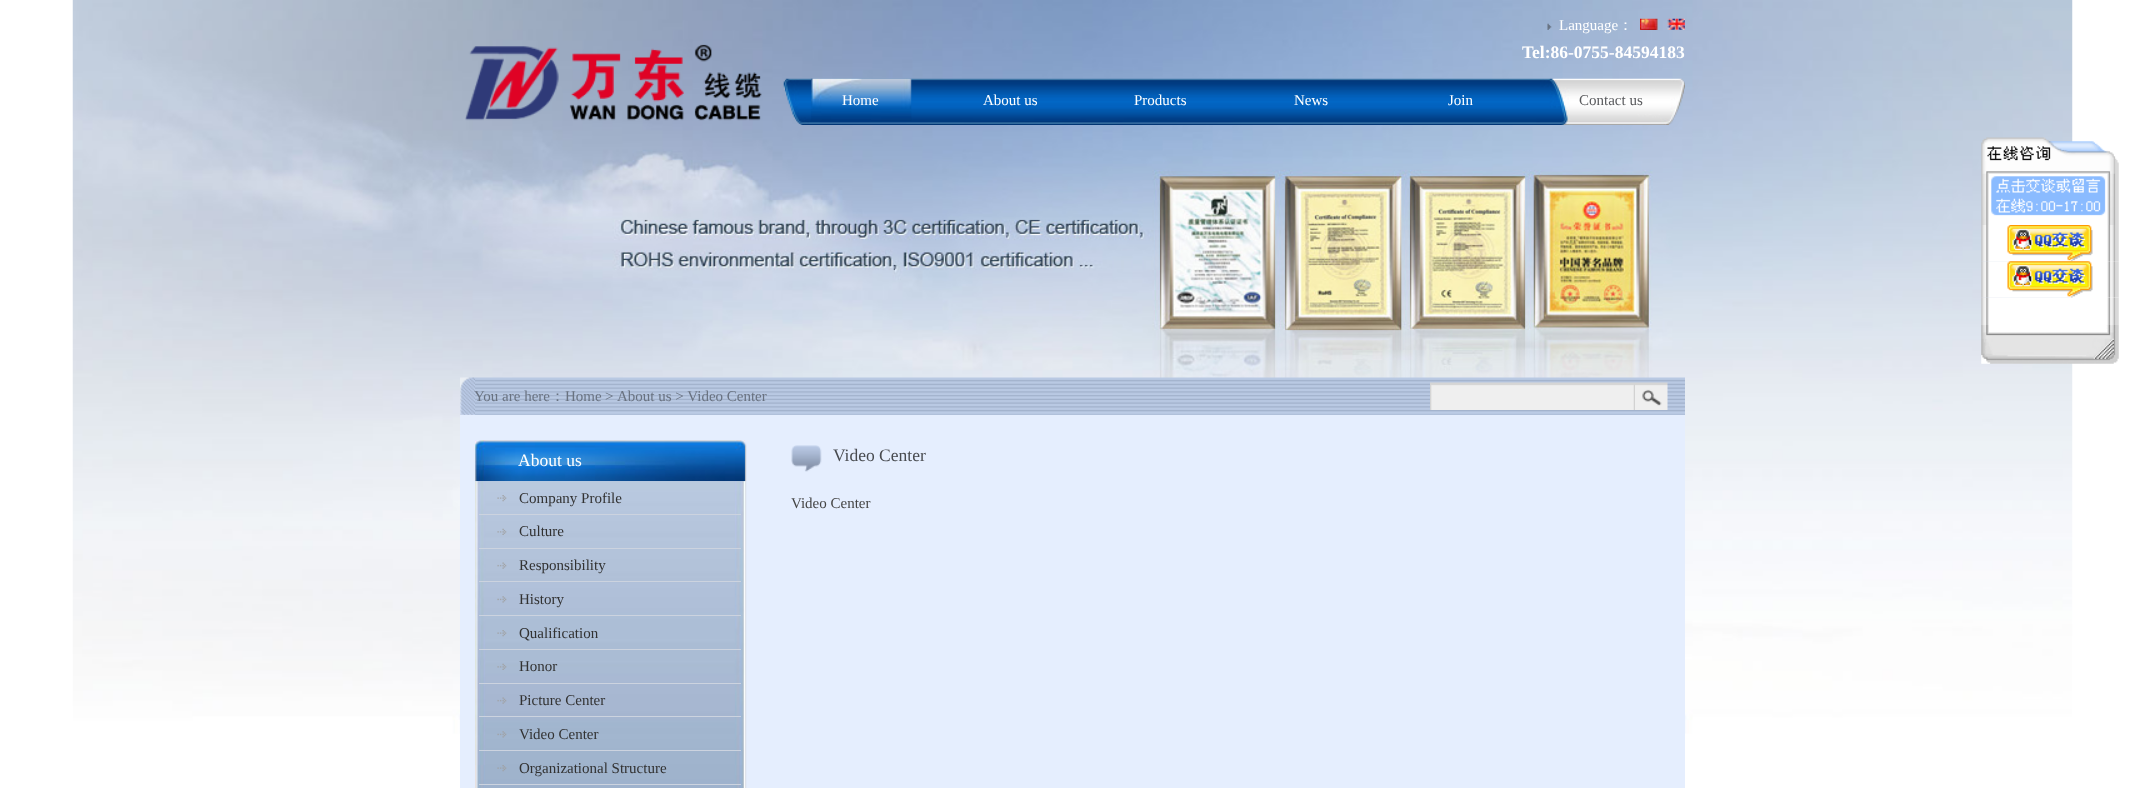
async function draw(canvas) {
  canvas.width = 2143
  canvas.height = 788
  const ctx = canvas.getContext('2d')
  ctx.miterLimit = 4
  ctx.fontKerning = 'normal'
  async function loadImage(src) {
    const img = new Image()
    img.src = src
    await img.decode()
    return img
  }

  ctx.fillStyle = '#fff'
  ctx.fillRect(0, 0, 2143, 788)
  ctx.drawImage(await loadImage('image0.png'), 72, 0, 2001, 734)
  ctx.drawImage(await loadImage('image1.png'), 1547, 23, 5, 7)
  ctx.font = '15px Liberation Serif'
  ctx.fillText('Language', 1559, 30)
  ctx.font = '500 15px WenQuanYi Zen Hei'
  ctx.fillText('：', 1618, 30)
  ctx.drawImage(await loadImage('image2.png'), 1640, 18, 18, 12)
  ctx.drawImage(await loadImage('image3.png'), 1667, 18, 18, 12)
  ctx.font = 'bold 17.5px Liberation Serif'
  ctx.fillText('Tel:86-0755-84594183', 1522, 58)
  ctx.drawImage(await loadImage('image4.png'), 465, 44, 297, 77)
  ctx.drawImage(await loadImage('image5.png'), 783, 78, 902, 47)
  ctx.drawImage(await loadImage('image6.png'), 811, 78, 101, 43)
  ctx.font = '15px Liberation Serif'
  ctx.fillText('Home', 842, 105)
  ctx.fillText('About us', 983, 105)
  ctx.fillText('Products', 1134, 105)
  ctx.fillText('News', 1294, 105)
  ctx.fillText('Join', 1448, 105)
  ctx.fillStyle = '#595a5d'
  ctx.fillText('Contact us', 1579, 105)
  ctx.drawImage(await loadImage('image7.png'), 1981, 137, 138, 88)
  ctx.drawImage(await loadImage('image8.png'), 1981, 225, 138, 37)
  ctx.drawImage(await loadImage('image10.png'), 1981, 261, 138, 37)
  ctx.drawImage(await loadImage('image9.png'), 2007, 225, 86, 37)
  ctx.drawImage(await loadImage('image12.png'), 1981, 297, 138, 28)
  ctx.drawImage(await loadImage('image11.png'), 2007, 261, 86, 37)
  ctx.drawImage(await loadImage('image13.png'), 1981, 325, 138, 39)
  ctx.drawImage(await loadImage('image14.png'), 460, 377, 15, 38)
  ctx.drawImage(await loadImage('image15.png'), 475, 377, 1210, 38)
  ctx.fillStyle = '#697280'
  ctx.fillText('You are here', 474, 401)
  ctx.font = '500 15px WenQuanYi Zen Hei'
  ctx.fillText('：', 550, 401)
  ctx.font = '15px Liberation Serif'
  ctx.fillText('Home', 565, 401)
  ctx.fillText('>', 605, 401)
  ctx.fillText('About us > Video Center', 617, 401)
  ctx.drawImage(await loadImage('image16.png'), 1430, 382, 205, 28)
  ctx.drawImage(await loadImage('image17.png'), 1635, 382, 33, 28)
  ctx.fillStyle = '#e5eefe'
  ctx.fillRect(460, 415, 1225, 373)
  ctx.drawImage(await loadImage('image18.png'), 475, 440, 272, 42)
  ctx.font = '17.5px Liberation Serif'
  ctx.fillStyle = '#fff'
  ctx.fillText('About us', 518, 466)
  ctx.drawImage(await loadImage('image19.png'), 475, 481, 272, 307)
  ctx.fillStyle = '#ccd3df'
  ctx.fillRect(479, 514, 262, 1)
  ctx.drawImage(await loadImage('image20.png'), 497, 495, 10, 7)
  ctx.font = '15px Liberation Serif'
  ctx.fillStyle = '#323232'
  ctx.fillText('Company Profile', 519, 503)
  ctx.fillStyle = '#ccd3df'
  ctx.fillRect(479, 548, 262, 1)
  ctx.drawImage(await loadImage('image21.png'), 497, 528, 10, 7)
  ctx.fillStyle = '#323232'
  ctx.fillText('Culture', 519, 536)
  ctx.fillStyle = '#ccd3df'
  ctx.fillRect(479, 581, 262, 1)
  ctx.drawImage(await loadImage('image22.png'), 497, 562, 10, 7)
  ctx.fillStyle = '#323232'
  ctx.fillText('Responsibility', 519, 570)
  ctx.fillStyle = '#ccd3df'
  ctx.fillRect(479, 615, 262, 1)
  ctx.drawImage(await loadImage('image23.png'), 497, 596, 10, 7)
  ctx.fillStyle = '#323232'
  ctx.fillText('History', 519, 604)
  ctx.fillStyle = '#ccd3df'
  ctx.fillRect(479, 649, 262, 1)
  ctx.drawImage(await loadImage('image24.png'), 497, 630, 10, 7)
  ctx.fillStyle = '#323232'
  ctx.fillText('Qualification', 519, 638)
  ctx.fillStyle = '#ccd3df'
  ctx.fillRect(479, 683, 262, 1)
  ctx.drawImage(await loadImage('image25.png'), 497, 663, 10, 7)
  ctx.fillStyle = '#323232'
  ctx.fillText('Honor', 519, 671)
  ctx.fillStyle = '#ccd3df'
  ctx.fillRect(479, 716, 262, 1)
  ctx.drawImage(await loadImage('image26.png'), 497, 697, 10, 7)
  ctx.fillStyle = '#323232'
  ctx.fillText('Picture Center', 519, 705)
  ctx.fillStyle = '#ccd3df'
  ctx.fillRect(479, 750, 262, 1)
  ctx.drawImage(await loadImage('image27.png'), 497, 731, 10, 7)
  ctx.fillStyle = '#323232'
  ctx.fillText('Video Center', 519, 739)
  ctx.fillStyle = '#ccd3df'
  ctx.fillRect(479, 784, 262, 1)
  ctx.drawImage(await loadImage('image28.png'), 497, 765, 10, 7)
  ctx.fillStyle = '#323232'
  ctx.fillText('Organizational Structure', 519, 773)
  ctx.drawImage(await loadImage('image29.png'), 791, 445, 31, 27)
  ctx.font = '17.5px Liberation Serif'
  ctx.fillStyle = '#484b50'
  ctx.fillText('Video Center', 833, 461)
  ctx.font = '15px Liberation Serif'
  ctx.fillStyle = '#454545'
  ctx.fillText('Video Center', 791, 508)
}

draw(document.querySelector('canvas'))
